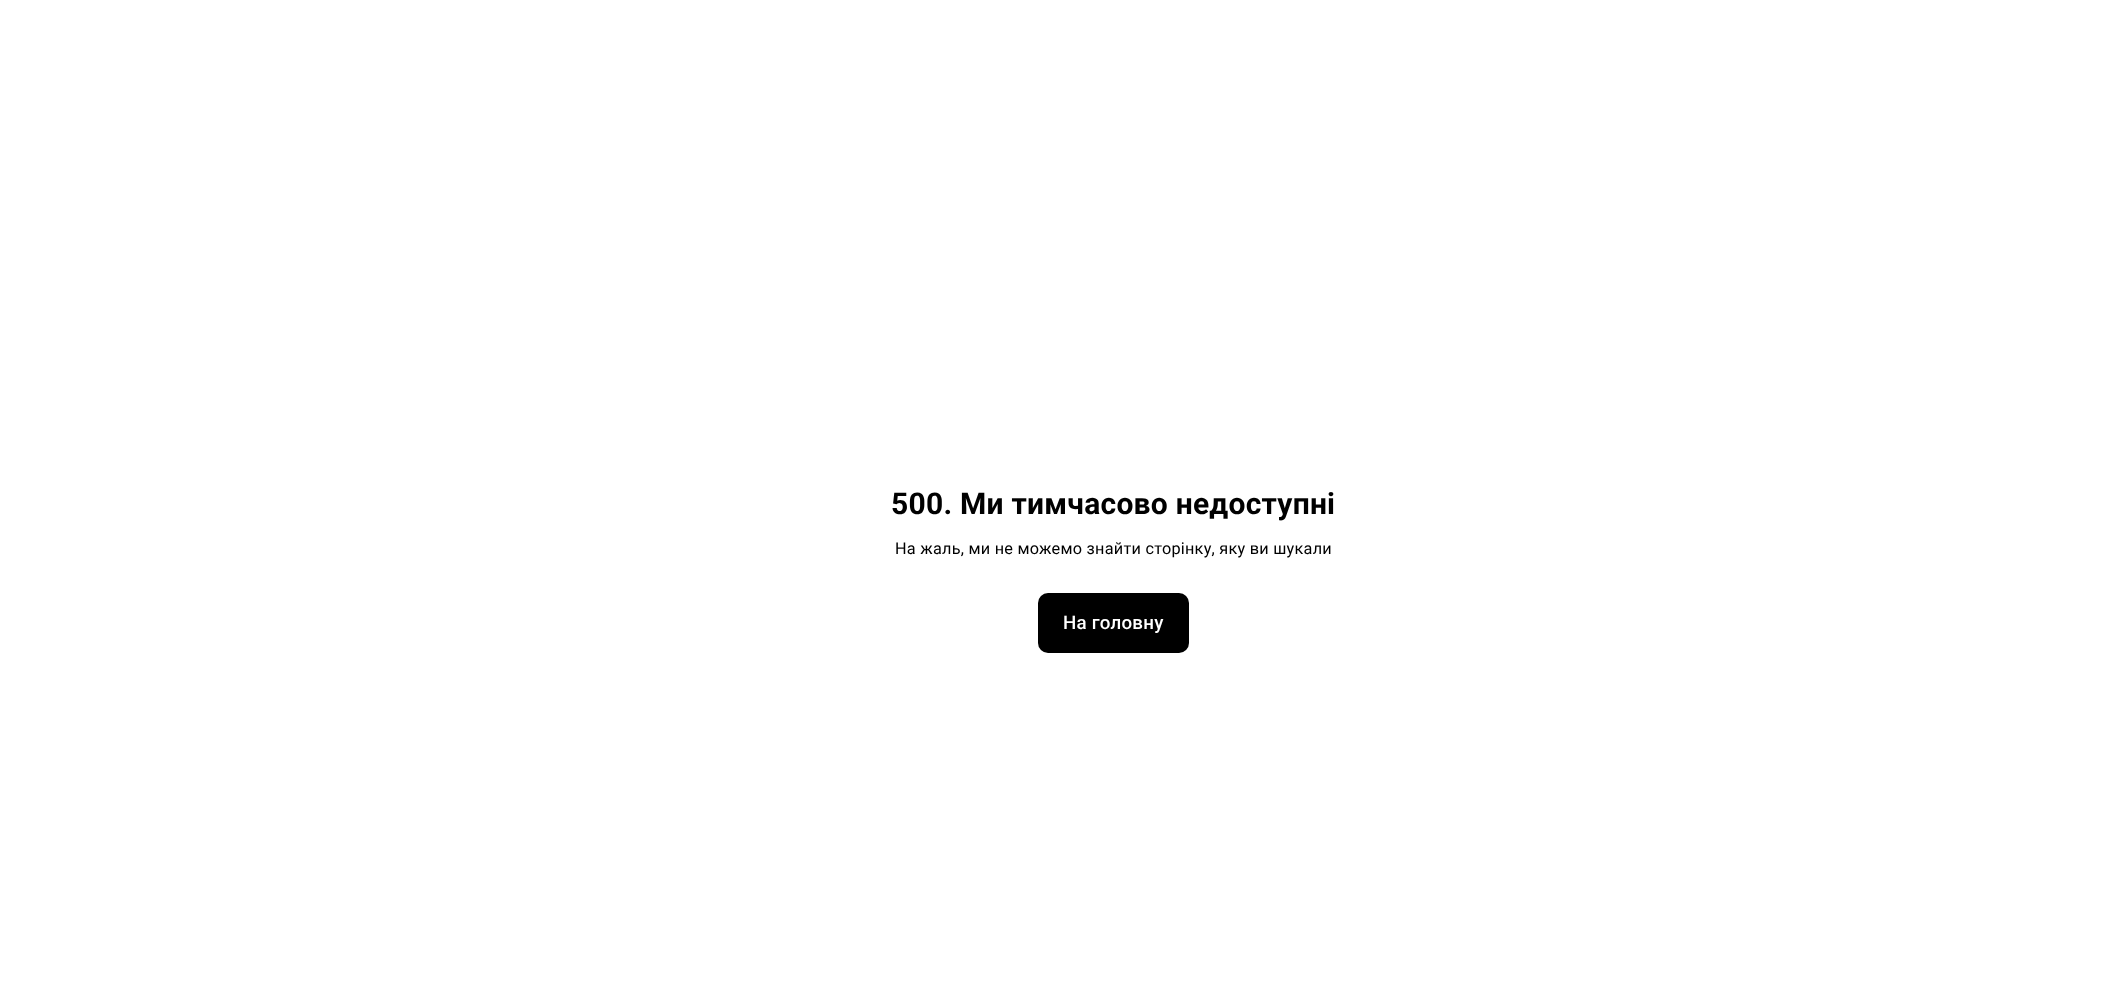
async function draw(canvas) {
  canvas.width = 2118
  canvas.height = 1003
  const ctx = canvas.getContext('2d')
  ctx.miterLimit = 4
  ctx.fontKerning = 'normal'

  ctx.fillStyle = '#fff'
  ctx.fillRect(0, 0, 2118, 1003)
  ctx.letterSpacing = '0.25px'
  ctx.font = 'bold 30px Roboto'
  ctx.fillStyle = '#000'
  ctx.fillText('500. Ми тимчасово недоступні', 891, 514)
  ctx.font = '16.25px Roboto'
  ctx.fillText('На жаль, ми не можемо знайти сторінку, яку ви шукали', 895, 554)
  ctx.beginPath()
  ctx.roundRect(1038, 593, 151, 60, 10)
  ctx.fill()
  ctx.font = '500 18.75px Roboto'
  ctx.fillStyle = '#fff'
  ctx.fillText('На головну', 1063, 629)
}

draw(document.querySelector('canvas'))
